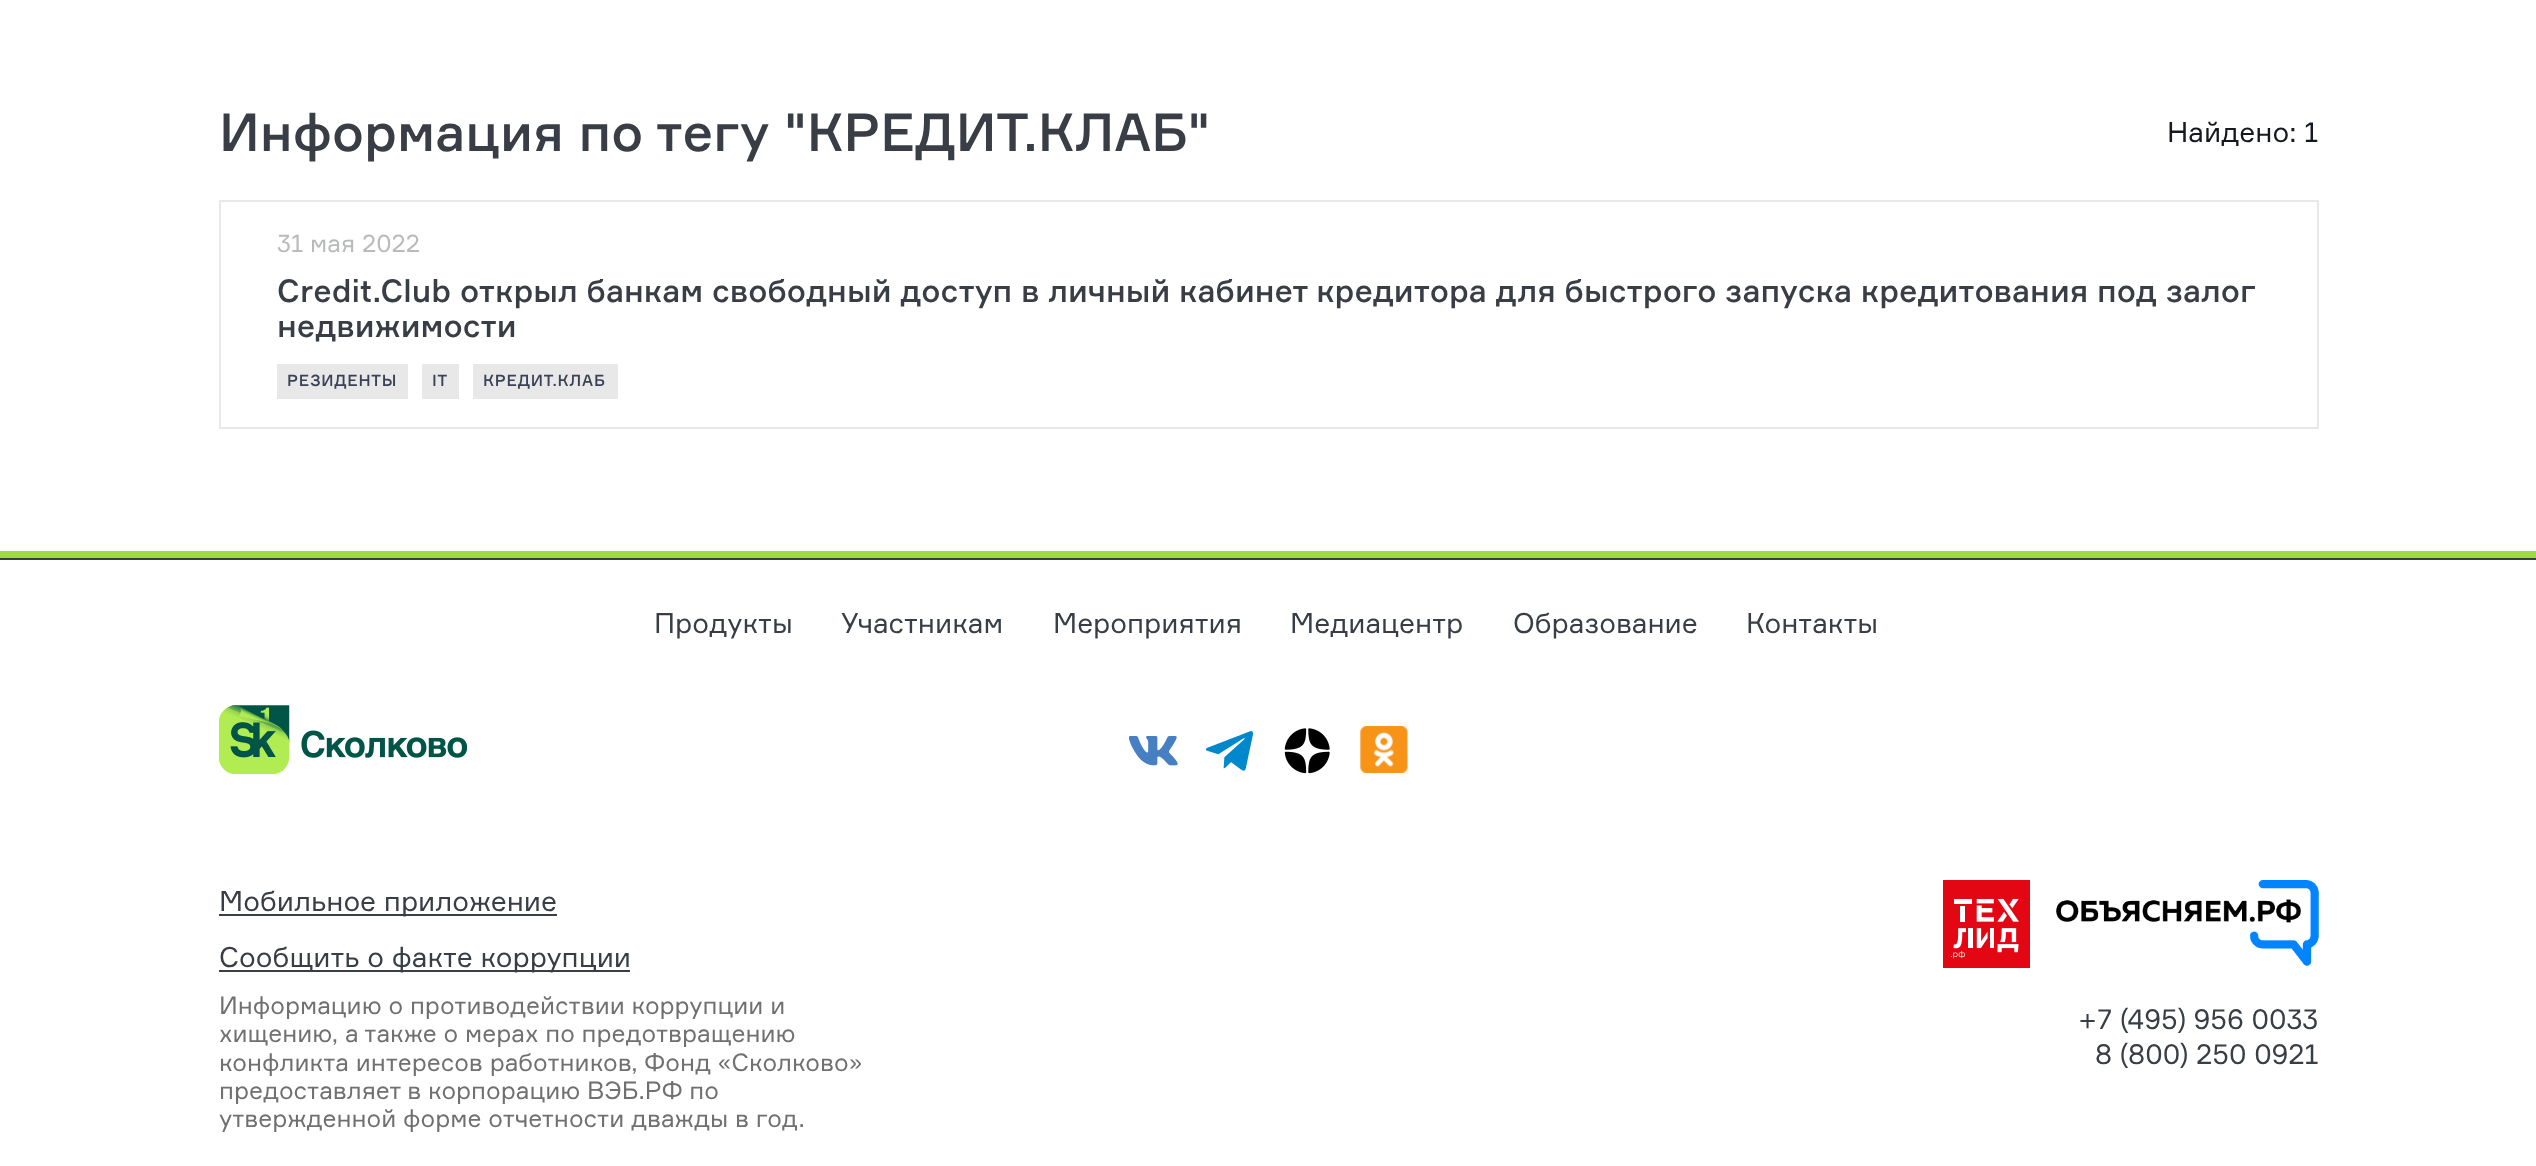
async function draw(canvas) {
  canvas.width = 2536
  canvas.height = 1166
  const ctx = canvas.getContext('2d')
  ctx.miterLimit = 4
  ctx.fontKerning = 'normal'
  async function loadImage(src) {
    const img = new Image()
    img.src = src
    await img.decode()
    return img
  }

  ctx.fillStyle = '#fff'
  ctx.fillRect(0, 0, 2536, 1166)
  ctx.font = '500 52.5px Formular'
  ctx.fillStyle = '#393e46'
  ctx.fillText('Информация по тегу "КРЕДИТ.КЛАБ"', 219, 151)
  ctx.font = '28px Formular'
  ctx.fillStyle = '#15181e'
  ctx.fillText('Найдено: 1', 2167, 142)
  ctx.strokeStyle = '#e8e8e8'
  ctx.lineWidth = 2
  ctx.strokeRect(220, 201, 2098, 227)
  ctx.font = '24.5px Formular'
  ctx.fillStyle = '#b9babb'
  ctx.fillText('31 мая 2022', 277, 252)
  ctx.font = '500 31.5px Formular'
  ctx.fillStyle = '#393e46'
  ctx.fillText('Credit.Club открыл банкам свободный доступ в личный кабинет кредитора для быстрого запуска кредитования под залог', 277, 302)
  ctx.fillText('недвижимости', 277, 337)
  ctx.fillStyle = '#e8e8e8'
  ctx.fillRect(277, 364, 131, 35)
  ctx.letterSpacing = '0.75px'
  ctx.font = '500 15.75px Formular'
  ctx.fillStyle = '#3b4256'
  ctx.fillText('РЕЗИДЕНТЫ', 287, 386)
  ctx.fillStyle = '#e8e8e8'
  ctx.fillRect(422, 364, 37, 35)
  ctx.fillStyle = '#3b4256'
  ctx.fillText('IT', 432, 386)
  ctx.fillStyle = '#e8e8e8'
  ctx.fillRect(473, 364, 145, 35)
  ctx.fillStyle = '#3b4256'
  ctx.fillText('КРЕДИТ.КЛАБ', 483, 386)
  ctx.fillStyle = '#9fdb3d'
  ctx.fillRect(0, 551, 2536, 7)
  ctx.fillStyle = '#393e46'
  ctx.fillRect(0, 558, 2536, 2)
  ctx.letterSpacing = '0px'
  ctx.font = '28px Formular'
  ctx.fillText('Продукты', 654, 633)
  ctx.fillText('Участникам', 841, 633)
  ctx.fillText('Мероприятия', 1053, 633)
  ctx.fillText('Медиацентр', 1290, 633)
  ctx.fillText('Образование', 1513, 633)
  ctx.fillText('Контакты', 1746, 633)
  ctx.drawImage(await loadImage('image0.png'), 1129, 736, 49, 30)
  ctx.drawImage(await loadImage('image1.png'), 1206, 731, 48, 40)
  ctx.drawImage(await loadImage('image2.png'), 1284, 728, 46, 46)
  ctx.drawImage(await loadImage('image3.png'), 1360, 726, 48, 47)
  ctx.drawImage(await loadImage('image4.png'), 219, 705, 248, 69)
  ctx.fillRect(219, 914, 338, 2)
  ctx.fillText('Мобильное приложение', 219, 911)
  ctx.fillRect(219, 970, 411, 2)
  ctx.fillText('Сообщить о факте коррупции', 219, 967)
  ctx.font = '24.5px Formular'
  ctx.fillStyle = '#707070'
  ctx.fillText('Информацию о противодействии коррупции и', 219, 1014)
  ctx.fillText('хищению, а также о мерах по предотвращению', 219, 1042)
  ctx.fillText('конфликта интересов работников, Фонд «Сколково»', 219, 1071)
  ctx.fillText('предоставляет в корпорацию ВЭБ.РФ по', 219, 1099)
  ctx.fillText('утвержденной форме отчетности дважды в год.', 219, 1127)
  ctx.drawImage(await loadImage('image5.png'), 1943, 880, 87, 88)
  ctx.drawImage(await loadImage('image6.png'), 2056, 880, 263, 86)
  ctx.font = '28px Formular'
  ctx.fillStyle = '#393e46'
  ctx.fillText('+7 (495) 956 0033', 2078, 1029)
  ctx.fillText('8 (800) 250 0921', 2095, 1064)
}

draw(document.querySelector('canvas'))
